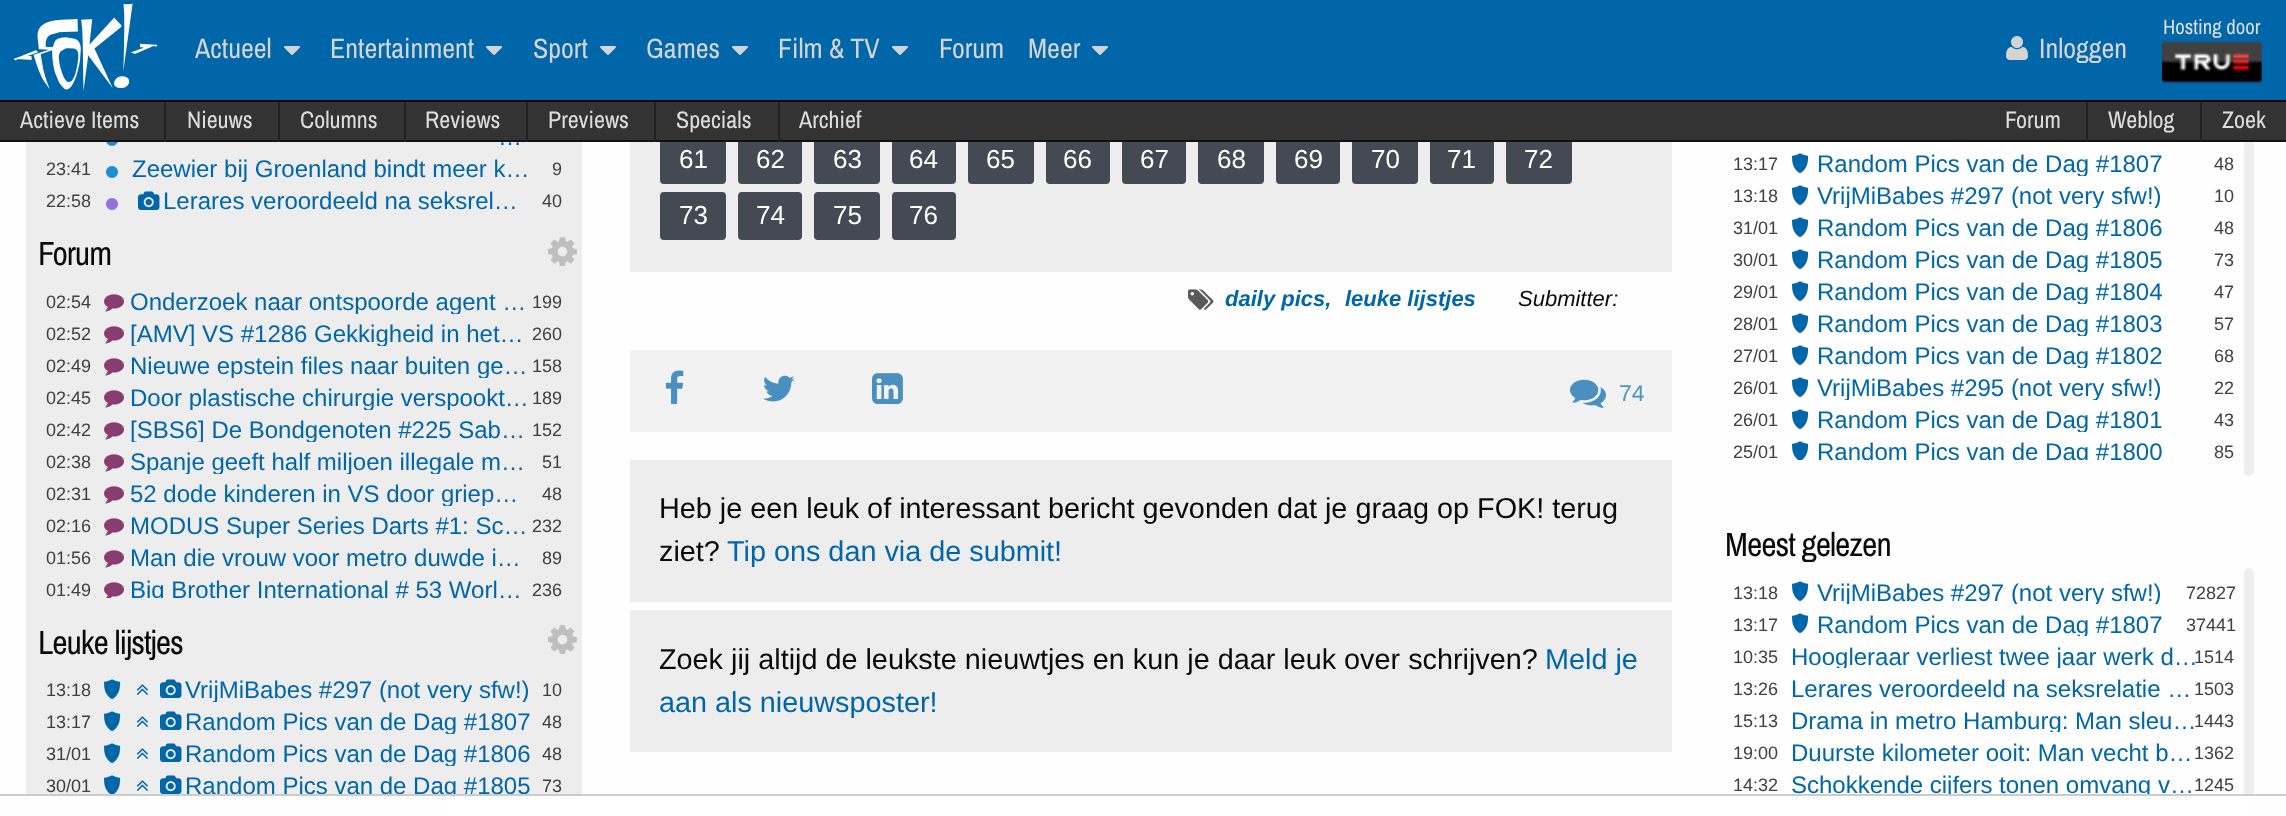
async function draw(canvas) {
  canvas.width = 2286
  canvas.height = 816
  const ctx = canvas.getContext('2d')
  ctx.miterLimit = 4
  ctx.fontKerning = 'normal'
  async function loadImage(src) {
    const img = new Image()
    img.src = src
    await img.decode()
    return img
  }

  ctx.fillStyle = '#fefefe'
  ctx.fillRect(0, 0, 2286, 816)
  ctx.fillStyle = '#ededed'
  ctx.fillRect(630, 142, 1042, 130)
  ctx.fillStyle = '#434a54'
  ctx.beginPath()
  ctx.roundRect(661, 137, 64, 46, 3)
  ctx.fill()
  ctx.strokeStyle = '#434a54'
  ctx.lineWidth = 2
  ctx.stroke()
  ctx.beginPath()
  ctx.roundRect(739, 137, 62, 46, 3)
  ctx.fill()
  ctx.stroke()
  ctx.beginPath()
  ctx.roundRect(815, 137, 64, 46, 3)
  ctx.fill()
  ctx.stroke()
  ctx.beginPath()
  ctx.roundRect(893, 137, 62, 46, 3)
  ctx.fill()
  ctx.stroke()
  ctx.beginPath()
  ctx.roundRect(969, 137, 64, 46, 3)
  ctx.fill()
  ctx.stroke()
  ctx.beginPath()
  ctx.roundRect(1047, 137, 62, 46, 3)
  ctx.fill()
  ctx.stroke()
  ctx.beginPath()
  ctx.roundRect(1123, 137, 62, 46, 3)
  ctx.fill()
  ctx.stroke()
  ctx.beginPath()
  ctx.roundRect(1199, 137, 64, 46, 3)
  ctx.fill()
  ctx.stroke()
  ctx.beginPath()
  ctx.roundRect(1277, 137, 62, 46, 3)
  ctx.fill()
  ctx.stroke()
  ctx.beginPath()
  ctx.roundRect(1353, 137, 64, 46, 3)
  ctx.fill()
  ctx.stroke()
  ctx.beginPath()
  ctx.roundRect(1431, 137, 62, 46, 3)
  ctx.fill()
  ctx.stroke()
  ctx.beginPath()
  ctx.roundRect(1507, 137, 64, 46, 3)
  ctx.fill()
  ctx.stroke()
  ctx.fillStyle = '#333'
  ctx.fillRect(0, 102, 2286, 38)
  ctx.fillStyle = '#eee'
  ctx.beginPath()
  ctx.roundRect(2244, 140, 10, 336, 5)
  ctx.fill()
  ctx.fillStyle = '#111'
  ctx.fillRect(0, 140, 2286, 2)
  ctx.fillStyle = '#222'
  ctx.fillRect(164, 98, 2, 44)
  ctx.fillRect(278, 98, 2, 44)
  ctx.fillRect(404, 98, 2, 44)
  ctx.fillRect(526, 98, 2, 44)
  ctx.fillRect(654, 98, 2, 44)
  ctx.fillRect(778, 98, 2, 44)
  ctx.fillRect(2086, 98, 2, 44)
  ctx.fillRect(2200, 98, 2, 44)
  ctx.fillStyle = '#06a'
  ctx.fillRect(0, 0, 2286, 100)
  ctx.fillStyle = '#000'
  ctx.fillRect(0, 100, 2286, 2)
  ctx.drawImage(await loadImage('image0.png'), 14, 3, 144, 88)
  ctx.font = '20.75px Archivo Narrow'
  ctx.fillStyle = '#ddd'
  ctx.fillText('Hosting door', 2163, 34)
  ctx.drawImage(await loadImage('image1.png'), 2162, 41, 100, 43)
  ctx.font = '28px Archivo Narrow'
  ctx.fillStyle = '#d4d4d4'
  ctx.fillText('Actueel', 195, 58)
  ctx.drawImage(await loadImage('image2.png'), 284, 46, 16, 9)
  ctx.fillText('Entertainment', 330, 58)
  ctx.drawImage(await loadImage('image2.png'), 486, 46, 16, 9)
  ctx.fillText('Sport', 533, 58)
  ctx.drawImage(await loadImage('image2.png'), 600, 46, 16, 9)
  ctx.fillText('Games', 646, 58)
  ctx.drawImage(await loadImage('image2.png'), 732, 46, 16, 9)
  ctx.fillText('Film & TV', 778, 58)
  ctx.drawImage(await loadImage('image2.png'), 892, 46, 16, 9)
  ctx.fillText('Forum', 939, 58)
  ctx.fillText('Meer', 1028, 58)
  ctx.drawImage(await loadImage('image2.png'), 1092, 46, 16, 9)
  ctx.drawImage(await loadImage('image3.png'), 2006, 36, 22, 24)
  ctx.fillText('Inloggen', 2039, 58)
  ctx.font = '24px Archivo Narrow'
  ctx.fillStyle = '#ddd'
  ctx.fillText('Actieve Items', 20, 128)
  ctx.fillText('Nieuws', 187, 128)
  ctx.fillText('Columns', 300, 128)
  ctx.fillText('Reviews', 425, 128)
  ctx.fillText('Previews', 548, 128)
  ctx.fillText('Specials', 676, 128)
  ctx.fillText('Archief', 799, 128)
  ctx.fillText('Forum', 2005, 128)
  ctx.fillText('Weblog', 2108, 128)
  ctx.fillText('Zoek', 2222, 128)
  ctx.fillStyle = '#ededed'
  ctx.fillRect(26, 142, 556, 652)
  ctx.drawImage(await loadImage('image4.png'), 106, 142, 12, 4)
  ctx.font = '24px Liberation Sans'
  ctx.fillStyle = '#06a'
  ctx.fillText('…', 498, 145)
  ctx.font = '18px Liberation Sans'
  ctx.fillStyle = '#404040'
  ctx.fillText('23:41', 46, 175)
  ctx.drawImage(await loadImage('image5.png'), 106, 166, 12, 12)
  ctx.font = '24px Liberation Sans'
  ctx.fillStyle = '#06a'
  ctx.fillText('Zeewier bij Groenland bindt meer k…', 132, 177)
  ctx.font = '18px Liberation Sans'
  ctx.fillStyle = '#404040'
  ctx.fillText('9', 552, 175)
  ctx.fillText('22:58', 46, 207)
  ctx.drawImage(await loadImage('image6.png'), 106, 198, 12, 12)
  ctx.drawImage(await loadImage('image7.png'), 138, 191, 22, 19)
  ctx.font = '24px Liberation Sans'
  ctx.fillStyle = '#06a'
  ctx.fillText('Lerares veroordeeld na seksrel…', 163, 209)
  ctx.font = '18px Liberation Sans'
  ctx.fillStyle = '#404040'
  ctx.fillText('40', 542, 207)
  ctx.letterSpacing = '-1px'
  ctx.font = '33.5px Archivo Narrow'
  ctx.fillStyle = '#0a0a0a'
  ctx.fillText('Forum', 38, 265)
  ctx.drawImage(await loadImage('image8.png'), 548, 237, 29, 29)
  ctx.letterSpacing = '0px'
  ctx.font = '18px Liberation Sans'
  ctx.fillStyle = '#404040'
  ctx.fillText('02:54', 46, 308)
  ctx.drawImage(await loadImage('image9.png'), 104, 294, 20, 18)
  ctx.save()
  ctx.beginPath()
  ctx.rect(104, 290, 426, 24)
  ctx.clip()
  ctx.font = '24px Liberation Sans'
  ctx.fillStyle = '#06a'
  ctx.fillText('Onderzoek naar ontspoorde agent …', 130, 310)
  ctx.restore()
  ctx.fillText('199', 532, 308)
  ctx.fillText('02:52', 46, 340)
  ctx.drawImage(await loadImage('image9.png'), 104, 326, 20, 18)
  ctx.save()
  ctx.beginPath()
  ctx.rect(104, 322, 426, 24)
  ctx.clip()
  ctx.font = '24px Liberation Sans'
  ctx.fillStyle = '#06a'
  ctx.fillText('[AMV] VS #1286 Gekkigheid in het…', 130, 342)
  ctx.restore()
  ctx.fillText('260', 532, 340)
  ctx.fillText('02:49', 46, 372)
  ctx.drawImage(await loadImage('image9.png'), 104, 358, 20, 18)
  ctx.save()
  ctx.beginPath()
  ctx.rect(104, 354, 426, 24)
  ctx.clip()
  ctx.font = '24px Liberation Sans'
  ctx.fillStyle = '#06a'
  ctx.fillText('Nieuwe epstein files naar buiten ge…', 130, 374)
  ctx.restore()
  ctx.fillText('158', 532, 372)
  ctx.fillText('02:45', 46, 404)
  ctx.drawImage(await loadImage('image9.png'), 104, 390, 20, 18)
  ctx.save()
  ctx.beginPath()
  ctx.rect(104, 386, 426, 24)
  ctx.clip()
  ctx.font = '24px Liberation Sans'
  ctx.fillStyle = '#06a'
  ctx.fillText('Door plastische chirurgie verspookt…', 130, 406)
  ctx.restore()
  ctx.fillText('189', 532, 404)
  ctx.fillText('02:42', 46, 436)
  ctx.drawImage(await loadImage('image9.png'), 104, 422, 20, 18)
  ctx.save()
  ctx.beginPath()
  ctx.rect(104, 418, 426, 24)
  ctx.clip()
  ctx.font = '24px Liberation Sans'
  ctx.fillStyle = '#06a'
  ctx.fillText('[SBS6] De Bondgenoten #225 Sab…', 130, 438)
  ctx.restore()
  ctx.fillText('152', 532, 436)
  ctx.fillText('02:38', 46, 468)
  ctx.drawImage(await loadImage('image9.png'), 104, 454, 20, 18)
  ctx.save()
  ctx.beginPath()
  ctx.rect(104, 450, 426, 24)
  ctx.clip()
  ctx.font = '24px Liberation Sans'
  ctx.fillStyle = '#06a'
  ctx.fillText('Spanje geeft half miljoen illegale m…', 130, 470)
  ctx.restore()
  ctx.fillText('51', 542, 468)
  ctx.fillText('02:31', 46, 500)
  ctx.drawImage(await loadImage('image9.png'), 104, 486, 20, 18)
  ctx.save()
  ctx.beginPath()
  ctx.rect(104, 482, 426, 24)
  ctx.clip()
  ctx.font = '24px Liberation Sans'
  ctx.fillStyle = '#06a'
  ctx.fillText('52 dode kinderen in VS door griep…', 130, 502)
  ctx.restore()
  ctx.fillText('48', 542, 500)
  ctx.fillText('02:16', 46, 532)
  ctx.drawImage(await loadImage('image9.png'), 104, 518, 20, 18)
  ctx.save()
  ctx.beginPath()
  ctx.rect(104, 514, 426, 24)
  ctx.clip()
  ctx.font = '24px Liberation Sans'
  ctx.fillStyle = '#06a'
  ctx.fillText('MODUS Super Series Darts #1: Sc…', 130, 534)
  ctx.restore()
  ctx.fillText('232', 532, 532)
  ctx.fillText('01:56', 46, 564)
  ctx.drawImage(await loadImage('image9.png'), 104, 550, 20, 18)
  ctx.font = '24px Liberation Sans'
  ctx.fillStyle = '#06a'
  ctx.fillText('Man die vrouw voor metro duwde i…', 130, 566)
  ctx.font = '18px Liberation Sans'
  ctx.fillStyle = '#404040'
  ctx.fillText('89', 542, 564)
  ctx.fillText('01:49', 46, 596)
  ctx.drawImage(await loadImage('image10.png'), 104, 582, 20, 16)
  ctx.save()
  ctx.beginPath()
  ctx.rect(104, 578, 426, 20)
  ctx.clip()
  ctx.font = '24px Liberation Sans'
  ctx.fillStyle = '#06a'
  ctx.fillText('Big Brother International # 53 Worl…', 130, 598)
  ctx.restore()
  ctx.fillText('236', 532, 596)
  ctx.letterSpacing = '-1px'
  ctx.font = '33.5px Archivo Narrow'
  ctx.fillStyle = '#0a0a0a'
  ctx.fillText('Leuke lijstjes', 38, 654)
  ctx.drawImage(await loadImage('image8.png'), 548, 625, 29, 29)
  ctx.letterSpacing = '0px'
  ctx.font = '18px Liberation Sans'
  ctx.fillStyle = '#404040'
  ctx.fillText('13:18', 46, 696)
  ctx.drawImage(await loadImage('image11.png'), 104, 679, 17, 21)
  ctx.drawImage(await loadImage('image12.png'), 136, 684, 12, 11)
  ctx.drawImage(await loadImage('image7.png'), 160, 679, 22, 19)
  ctx.save()
  ctx.beginPath()
  ctx.rect(104, 678, 426, 24)
  ctx.clip()
  ctx.font = '24px Liberation Sans'
  ctx.fillStyle = '#06a'
  ctx.fillText('VrijMiBabes #297 (not very sfw!)', 185, 698)
  ctx.restore()
  ctx.fillText('10', 542, 696)
  ctx.fillText('13:17', 46, 728)
  ctx.drawImage(await loadImage('image11.png'), 104, 711, 17, 21)
  ctx.drawImage(await loadImage('image12.png'), 136, 716, 12, 11)
  ctx.drawImage(await loadImage('image7.png'), 160, 711, 22, 19)
  ctx.save()
  ctx.beginPath()
  ctx.rect(104, 710, 426, 24)
  ctx.clip()
  ctx.font = '24px Liberation Sans'
  ctx.fillStyle = '#06a'
  ctx.fillText('Random Pics van de Dag #1807', 185, 730)
  ctx.restore()
  ctx.fillText('48', 542, 728)
  ctx.fillText('31/01', 46, 760)
  ctx.drawImage(await loadImage('image11.png'), 104, 743, 17, 21)
  ctx.drawImage(await loadImage('image12.png'), 136, 748, 12, 11)
  ctx.drawImage(await loadImage('image7.png'), 160, 743, 22, 19)
  ctx.save()
  ctx.beginPath()
  ctx.rect(104, 742, 426, 24)
  ctx.clip()
  ctx.font = '24px Liberation Sans'
  ctx.fillStyle = '#06a'
  ctx.fillText('Random Pics van de Dag #1806', 185, 762)
  ctx.restore()
  ctx.fillText('48', 542, 760)
  ctx.fillText('30/01', 46, 792)
  ctx.drawImage(await loadImage('image13.png'), 104, 775, 17, 19)
  ctx.drawImage(await loadImage('image12.png'), 136, 780, 12, 11)
  ctx.drawImage(await loadImage('image7.png'), 160, 775, 22, 19)
  ctx.font = '24px Liberation Sans'
  ctx.fillStyle = '#06a'
  ctx.fillText('Random Pics van de Dag #1805', 185, 794)
  ctx.font = '18px Liberation Sans'
  ctx.fillStyle = '#404040'
  ctx.fillText('73', 542, 792)
  ctx.font = '26px Liberation Sans'
  ctx.fillStyle = '#fff'
  ctx.fillText('61', 679, 168)
  ctx.fillText('62', 756, 168)
  ctx.fillText('63', 833, 168)
  ctx.fillText('64', 909, 168)
  ctx.fillText('65', 986, 168)
  ctx.fillText('66', 1063, 168)
  ctx.fillText('67', 1140, 168)
  ctx.fillText('68', 1217, 168)
  ctx.fillText('69', 1294, 168)
  ctx.fillText('70', 1371, 168)
  ctx.fillText('71', 1447, 168)
  ctx.fillText('72', 1524, 168)
  ctx.fillStyle = '#434a54'
  ctx.beginPath()
  ctx.roundRect(661, 193, 64, 46, 3)
  ctx.fill()
  ctx.stroke()
  ctx.fillStyle = '#fff'
  ctx.fillText('73', 679, 224)
  ctx.fillStyle = '#434a54'
  ctx.beginPath()
  ctx.roundRect(739, 193, 62, 46, 3)
  ctx.fill()
  ctx.stroke()
  ctx.fillStyle = '#fff'
  ctx.fillText('74', 756, 224)
  ctx.fillStyle = '#434a54'
  ctx.beginPath()
  ctx.roundRect(815, 193, 64, 46, 3)
  ctx.fill()
  ctx.stroke()
  ctx.fillStyle = '#fff'
  ctx.fillText('75', 833, 224)
  ctx.fillStyle = '#434a54'
  ctx.beginPath()
  ctx.roundRect(893, 193, 62, 46, 3)
  ctx.fill()
  ctx.stroke()
  ctx.fillStyle = '#fff'
  ctx.fillText('76', 909, 224)
  ctx.drawImage(await loadImage('image14.png'), 1188, 289, 26, 21)
  ctx.font = 'italic bold 22px Liberation Sans'
  ctx.fillStyle = '#06a'
  ctx.fillText('daily pics,', 1225, 306)
  ctx.fillText('leuke lijstjes', 1345, 306)
  ctx.font = 'italic 22px Liberation Sans'
  ctx.fillStyle = '#0a0a0a'
  ctx.fillText('Submitter:', 1518, 306)
  ctx.fillStyle = '#f2f2f2'
  ctx.fillRect(630, 350, 1042, 82)
  ctx.drawImage(await loadImage('image15.png'), 665, 370, 19, 34)
  ctx.drawImage(await loadImage('image16.png'), 763, 375, 32, 27)
  ctx.drawImage(await loadImage('image17.png'), 872, 373, 31, 32)
  ctx.drawImage(await loadImage('image18.png'), 1570, 379, 36, 29)
  ctx.font = '23px Liberation Sans'
  ctx.fillStyle = '#4c94c3'
  ctx.fillText('74', 1619, 401)
  ctx.fillStyle = '#ededed'
  ctx.fillRect(630, 460, 1042, 142)
  ctx.font = '28.8px Liberation Sans'
  ctx.fillStyle = '#0a0a0a'
  ctx.fillText('Heb je een leuk of interessant bericht gevonden dat je graag op FOK! terug', 659, 518)
  ctx.fillText('ziet?', 659, 561)
  ctx.fillStyle = '#06a'
  ctx.fillText('Tip ons dan via de submit!', 727, 561)
  ctx.fillStyle = '#ededed'
  ctx.fillRect(630, 610, 1042, 142)
  ctx.fillStyle = '#0a0a0a'
  ctx.fillText('Zoek jij altijd de leukste nieuwtjes en kun je daar leuk over schrijven?', 659, 669)
  ctx.fillStyle = '#06a'
  ctx.fillText('Meld je', 1545, 669)
  ctx.fillText('aan als nieuwsposter!', 659, 712)
  ctx.font = '18px Liberation Sans'
  ctx.fillStyle = '#404040'
  ctx.fillText('13:17', 1733, 170)
  ctx.drawImage(await loadImage('image19.png'), 1792, 153, 17, 21)
  ctx.save()
  ctx.beginPath()
  ctx.rect(1792, 152, 410, 24)
  ctx.clip()
  ctx.font = '24px Liberation Sans'
  ctx.fillStyle = '#06a'
  ctx.fillText('Random Pics van de Dag #1807', 1817, 172)
  ctx.restore()
  ctx.fillText('48', 2214, 170)
  ctx.fillText('13:18', 1733, 202)
  ctx.drawImage(await loadImage('image19.png'), 1792, 185, 17, 21)
  ctx.save()
  ctx.beginPath()
  ctx.rect(1792, 184, 410, 24)
  ctx.clip()
  ctx.font = '24px Liberation Sans'
  ctx.fillStyle = '#06a'
  ctx.fillText('VrijMiBabes #297 (not very sfw!)', 1817, 204)
  ctx.restore()
  ctx.fillText('10', 2214, 202)
  ctx.fillText('31/01', 1733, 234)
  ctx.drawImage(await loadImage('image19.png'), 1792, 217, 17, 21)
  ctx.save()
  ctx.beginPath()
  ctx.rect(1792, 216, 410, 24)
  ctx.clip()
  ctx.font = '24px Liberation Sans'
  ctx.fillStyle = '#06a'
  ctx.fillText('Random Pics van de Dag #1806', 1817, 236)
  ctx.restore()
  ctx.fillText('48', 2214, 234)
  ctx.fillText('30/01', 1733, 266)
  ctx.drawImage(await loadImage('image19.png'), 1792, 249, 17, 21)
  ctx.save()
  ctx.beginPath()
  ctx.rect(1792, 248, 410, 24)
  ctx.clip()
  ctx.font = '24px Liberation Sans'
  ctx.fillStyle = '#06a'
  ctx.fillText('Random Pics van de Dag #1805', 1817, 268)
  ctx.restore()
  ctx.fillText('73', 2214, 266)
  ctx.fillText('29/01', 1733, 298)
  ctx.drawImage(await loadImage('image19.png'), 1792, 281, 17, 21)
  ctx.save()
  ctx.beginPath()
  ctx.rect(1792, 280, 410, 24)
  ctx.clip()
  ctx.font = '24px Liberation Sans'
  ctx.fillStyle = '#06a'
  ctx.fillText('Random Pics van de Dag #1804', 1817, 300)
  ctx.restore()
  ctx.fillText('47', 2214, 298)
  ctx.fillText('28/01', 1733, 330)
  ctx.drawImage(await loadImage('image19.png'), 1792, 313, 17, 21)
  ctx.save()
  ctx.beginPath()
  ctx.rect(1792, 312, 410, 24)
  ctx.clip()
  ctx.font = '24px Liberation Sans'
  ctx.fillStyle = '#06a'
  ctx.fillText('Random Pics van de Dag #1803', 1817, 332)
  ctx.restore()
  ctx.fillText('57', 2214, 330)
  ctx.fillText('27/01', 1733, 362)
  ctx.drawImage(await loadImage('image19.png'), 1792, 345, 17, 21)
  ctx.save()
  ctx.beginPath()
  ctx.rect(1792, 344, 410, 24)
  ctx.clip()
  ctx.font = '24px Liberation Sans'
  ctx.fillStyle = '#06a'
  ctx.fillText('Random Pics van de Dag #1802', 1817, 364)
  ctx.restore()
  ctx.fillText('68', 2214, 362)
  ctx.fillText('26/01', 1733, 394)
  ctx.drawImage(await loadImage('image19.png'), 1792, 377, 17, 21)
  ctx.save()
  ctx.beginPath()
  ctx.rect(1792, 376, 410, 24)
  ctx.clip()
  ctx.font = '24px Liberation Sans'
  ctx.fillStyle = '#06a'
  ctx.fillText('VrijMiBabes #295 (not very sfw!)', 1817, 396)
  ctx.restore()
  ctx.fillText('22', 2214, 394)
  ctx.fillText('26/01', 1733, 426)
  ctx.drawImage(await loadImage('image19.png'), 1792, 409, 17, 21)
  ctx.save()
  ctx.beginPath()
  ctx.rect(1792, 408, 410, 24)
  ctx.clip()
  ctx.font = '24px Liberation Sans'
  ctx.fillStyle = '#06a'
  ctx.fillText('Random Pics van de Dag #1801', 1817, 428)
  ctx.restore()
  ctx.fillText('43', 2214, 426)
  ctx.fillText('25/01', 1733, 458)
  ctx.drawImage(await loadImage('image20.png'), 1792, 441, 17, 19)
  ctx.save()
  ctx.beginPath()
  ctx.rect(1792, 440, 410, 20)
  ctx.clip()
  ctx.font = '24px Liberation Sans'
  ctx.fillStyle = '#06a'
  ctx.fillText('Random Pics van de Dag #1800', 1817, 460)
  ctx.restore()
  ctx.fillText('85', 2214, 458)
  ctx.letterSpacing = '-1px'
  ctx.font = '33.5px Archivo Narrow'
  ctx.fillStyle = '#0a0a0a'
  ctx.fillText('Meest gelezen', 1725, 556)
  ctx.letterSpacing = '0px'
  ctx.font = '18px Liberation Sans'
  ctx.fillStyle = '#404040'
  ctx.fillText('13:18', 1733, 599)
  ctx.drawImage(await loadImage('image19.png'), 1792, 581, 17, 21)
  ctx.save()
  ctx.beginPath()
  ctx.rect(1792, 580, 410, 24)
  ctx.clip()
  ctx.font = '24px Liberation Sans'
  ctx.fillStyle = '#06a'
  ctx.fillText('VrijMiBabes #297 (not very sfw!)', 1817, 601)
  ctx.restore()
  ctx.fillText('72827', 2186, 599)
  ctx.fillText('13:17', 1733, 631)
  ctx.drawImage(await loadImage('image19.png'), 1792, 613, 17, 21)
  ctx.save()
  ctx.beginPath()
  ctx.rect(1792, 612, 410, 24)
  ctx.clip()
  ctx.font = '24px Liberation Sans'
  ctx.fillStyle = '#06a'
  ctx.fillText('Random Pics van de Dag #1807', 1817, 633)
  ctx.restore()
  ctx.fillText('37441', 2186, 631)
  ctx.fillText('10:35', 1733, 663)
  ctx.save()
  ctx.beginPath()
  ctx.rect(1792, 644, 410, 24)
  ctx.clip()
  ctx.font = '24px Liberation Sans'
  ctx.fillStyle = '#06a'
  ctx.fillText('Hoogleraar verliest twee jaar werk d…', 1791, 665)
  ctx.restore()
  ctx.fillText('1514', 2194, 663)
  ctx.fillText('13:26', 1733, 695)
  ctx.font = '24px Liberation Sans'
  ctx.fillStyle = '#06a'
  ctx.fillText('Lerares veroordeeld na seksrelatie …', 1791, 697)
  ctx.font = '18px Liberation Sans'
  ctx.fillStyle = '#404040'
  ctx.fillText('1503', 2194, 695)
  ctx.fillText('15:13', 1733, 727)
  ctx.save()
  ctx.beginPath()
  ctx.rect(1792, 708, 410, 24)
  ctx.clip()
  ctx.font = '24px Liberation Sans'
  ctx.fillStyle = '#06a'
  ctx.fillText('Drama in metro Hamburg: Man sleu…', 1791, 729)
  ctx.restore()
  ctx.fillText('1443', 2194, 727)
  ctx.fillText('19:00', 1733, 759)
  ctx.font = '24px Liberation Sans'
  ctx.fillStyle = '#06a'
  ctx.fillText('Duurste kilometer ooit: Man vecht b…', 1791, 761)
  ctx.font = '18px Liberation Sans'
  ctx.fillStyle = '#404040'
  ctx.fillText('1362', 2194, 759)
  ctx.fillText('14:32', 1733, 791)
  ctx.font = '24px Liberation Sans'
  ctx.fillStyle = '#06a'
  ctx.fillText('Schokkende cijfers tonen omvang v…', 1791, 793)
  ctx.font = '18px Liberation Sans'
  ctx.fillStyle = '#404040'
  ctx.fillText('1245', 2194, 791)
  ctx.fillStyle = '#eee'
  ctx.beginPath()
  ctx.roundRect(2244, 568, 10, 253, 5)
  ctx.fill()
  ctx.fillStyle = '#fff'
  ctx.fillRect(444, 796, 1810, 20)
  ctx.fillStyle = '#ccc'
  ctx.fillRect(0, 794, 2286, 2)
}

draw(document.querySelector('canvas'))
